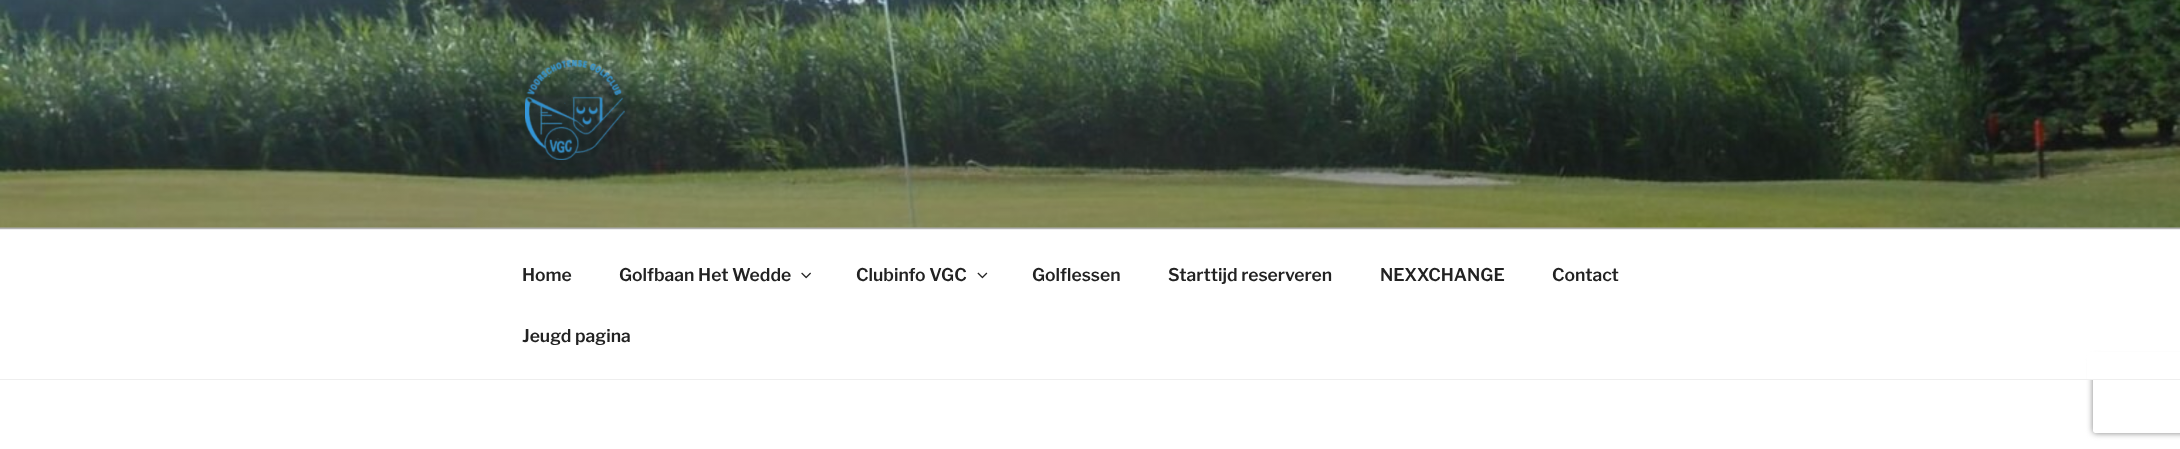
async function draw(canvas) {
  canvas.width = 2180
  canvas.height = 449
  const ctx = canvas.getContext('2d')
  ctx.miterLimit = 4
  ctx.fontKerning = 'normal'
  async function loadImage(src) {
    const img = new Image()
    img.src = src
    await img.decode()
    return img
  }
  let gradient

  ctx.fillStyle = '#fff'
  ctx.fillRect(0, 0, 2180, 449)
  ctx.fillStyle = '#fafafa'
  ctx.fillRect(0, 227, 2180, 2)
  ctx.drawImage(await loadImage('image0.png'), 0, 0, 2180, 228)
  gradient = ctx.createLinearGradient(1090, 0, 1090, 229)
  gradient.addColorStop(0, '#00000000')
  gradient.addColorStop(0.75, '#0000004d')
  gradient.addColorStop(1, '#0000004d')
  ctx.fillStyle = gradient
  ctx.fillRect(0, 12, 2180, 217)
  ctx.drawImage(await loadImage('image1.png'), 525, 60, 100, 100)
  ctx.save()
  ctx.beginPath()
  ctx.moveTo(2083, 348)
  ctx.lineTo(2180, 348)
  ctx.lineTo(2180, 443)
  ctx.lineTo(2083, 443)
  ctx.closePath()
  ctx.moveTo(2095.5, 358)
  ctx.lineTo(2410.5, 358)
  ctx.bezierCurveTo(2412, 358, 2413, 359, 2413, 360.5)
  ctx.lineTo(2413, 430.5)
  ctx.bezierCurveTo(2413, 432, 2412, 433, 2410.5, 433)
  ctx.lineTo(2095.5, 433)
  ctx.bezierCurveTo(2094, 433, 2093, 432, 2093, 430.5)
  ctx.lineTo(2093, 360.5)
  ctx.bezierCurveTo(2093, 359, 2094, 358, 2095.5, 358)
  ctx.closePath()
  ctx.clip('evenodd')
  ctx.fillStyle = '#808080'
  ctx.filter = 'blur(3px)'
  ctx.beginPath()
  ctx.roundRect(2093, 358, 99, 75, 2.5)
  ctx.fill()
  ctx.filter = 'none'
  ctx.restore()
  ctx.fillStyle = '#fff'
  ctx.fillRect(2087, 352, 93, 27)
  ctx.fillStyle = '#eee'
  ctx.fillRect(0, 229, 2180, 1)
  ctx.fillRect(0, 379, 2180, 1)
  ctx.font = '100 17.5px Libre Franklin'
  ctx.fillStyle = '#222'
  ctx.fillText('Home', 522, 281)
  ctx.fillText('Golfbaan Het Wedde', 619, 281)
  ctx.drawImage(await loadImage('image2.png'), 801, 272, 10, 7)
  ctx.fillText('Clubinfo VGC', 856, 281)
  ctx.drawImage(await loadImage('image3.png'), 977, 272, 11, 7)
  ctx.fillText('Golflessen', 1032, 281)
  ctx.fillText('Starttijd reserveren', 1168, 281)
  ctx.fillText('NEXXCHANGE', 1380, 281)
  ctx.fillText('Contact', 1552, 281)
  ctx.fillText('Jeugd pagina', 522, 342)
}

draw(document.querySelector('canvas'))
